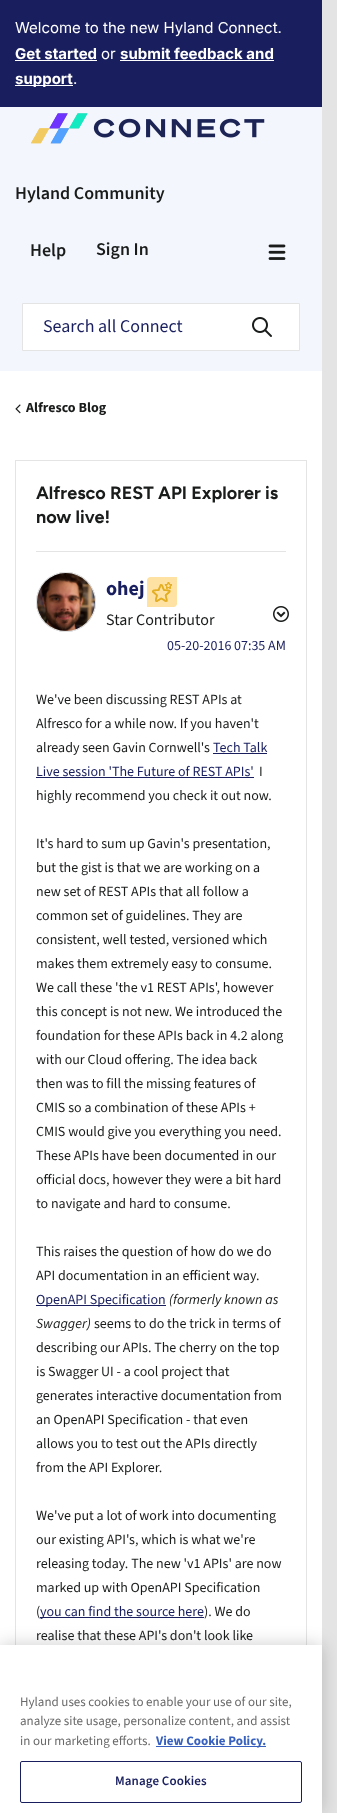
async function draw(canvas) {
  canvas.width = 337
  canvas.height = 1813
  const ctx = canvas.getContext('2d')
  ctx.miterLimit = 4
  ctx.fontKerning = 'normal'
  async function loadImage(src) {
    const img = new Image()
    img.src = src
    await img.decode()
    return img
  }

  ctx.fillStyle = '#e4e4e4'
  ctx.fillRect(0, 0, 337, 1813)
  ctx.fillStyle = '#fff'
  ctx.fillRect(0, 371, 322, 1274)
  ctx.fillStyle = '#191f5e'
  ctx.fillRect(0, 0, 322, 107)
  ctx.font = '15px Inter'
  ctx.fillStyle = '#fff'
  ctx.fillText('Welcome to the new Hyland Connect.', 15, 33)
  ctx.font = 'bold 15px Inter'
  ctx.fillText('Get started', 15, 59)
  ctx.fillRect(15, 60, 82, 1)
  ctx.font = '15px Inter'
  ctx.fillText('or', 101, 59)
  ctx.font = 'bold 15px Inter'
  ctx.fillText('submit feedback and', 120, 59)
  ctx.fillRect(120, 60, 154, 1)
  ctx.fillRect(15, 85, 58, 1)
  ctx.fillText('support', 15, 84)
  ctx.font = '15px Inter'
  ctx.fillText('.', 73, 84)
  ctx.fillStyle = '#f4f6fe'
  ctx.fillRect(0, 107, 322, 264)
  ctx.drawImage(await loadImage('image0.png'), 31, 113, 234, 31)
  ctx.font = '600 18px "Source Sans 3"'
  ctx.fillStyle = '#191c1a'
  ctx.fillText('Hyland Community', 15, 199)
  ctx.fillText('Help', 30, 256)
  ctx.fillText('Sign In', 96, 255)
  ctx.drawImage(await loadImage('image1.png'), 268, 244, 18, 16)
  ctx.fillStyle = '#fff'
  ctx.beginPath()
  ctx.rect(22.5, 303.5, 277, 47)
  ctx.fill()
  ctx.strokeStyle = '#e4e4e4'
  ctx.stroke()
  ctx.font = '18px "Source Sans 3"'
  ctx.fillStyle = '#191f5e'
  ctx.fillText('Search all Connect', 43, 332)
  ctx.drawImage(await loadImage('image2.png'), 252, 317, 20, 20)
  ctx.drawImage(await loadImage('image3.png'), 15, 404, 6, 10)
  ctx.font = 'bold 14px "Source Sans 3"'
  ctx.fillStyle = '#191c1a'
  ctx.fillText('Alfresco Blog', 26, 412)
  ctx.strokeRect(15.5, 460.5, 291, 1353)
  ctx.fillStyle = '#e4e4e4'
  ctx.fillRect(36, 551, 250, 1)
  ctx.font = 'bold 18px Figtree'
  ctx.fillStyle = '#191c1a'
  ctx.fillText('Alfresco REST API Explorer is', 36, 499)
  ctx.fillText('now live!', 36, 523)
  ctx.fillStyle = '#c4c4c4'
  ctx.filter = 'blur(0.5px)'
  ctx.beginPath()
  ctx.roundRect(36, 572, 60, 60, 30)
  ctx.fill()
  ctx.filter = 'none'
  ctx.beginPath()
  ctx.arc(66, 602, 29.5, 0, 2 * Math.PI)
  ctx.stroke()
  ctx.drawImage(await loadImage('image4.png'), 37, 573, 58, 58)
  ctx.font = 'bold 20px "Source Sans 3"'
  ctx.fillStyle = '#191f5e'
  ctx.fillText('ohej', 106, 595)
  ctx.drawImage(await loadImage('image5.png'), 147, 577, 30, 30)
  ctx.font = '16px "Source Sans 3"'
  ctx.fillStyle = '#191c1a'
  ctx.fillText('Star Contributor', 106, 625)
  ctx.drawImage(await loadImage('image6.png'), 273, 606, 16, 16)
  ctx.font = '14px "Source Sans 3"'
  ctx.fillStyle = '#191f5e'
  ctx.fillText('05-20-2016', 167, 650)
  ctx.fillText('07:35 AM', 234, 650)
  ctx.fillStyle = '#191c1a'
  ctx.fillText('We\'ve been discussing REST APIs at', 36, 704)
  ctx.fillText('Alfresco for a while now. If you haven\'t', 36, 728)
  ctx.fillText('already seen Gavin Cornwell\'s', 36, 752)
  ctx.fillStyle = '#191f5e'
  ctx.fillText('Tech Talk', 213, 752)
  ctx.fillRect(213, 753, 54, 1)
  ctx.fillText('Live session \'The Future of REST APIs\'', 36, 776)
  ctx.fillRect(36, 777, 218, 1)
  ctx.fillStyle = '#191c1a'
  ctx.fillText('I', 259, 776)
  ctx.fillText('highly recommend you check it out now.', 36, 800)
  ctx.fillText('It\'s hard to sum up Gavin\'s presentation,', 36, 848)
  ctx.fillText('but the gist is that we are working on a', 36, 872)
  ctx.fillText('new set of REST APIs that all follow a', 36, 896)
  ctx.fillText('common set of guidelines. They are', 36, 920)
  ctx.fillText('consistent, well tested, versioned which', 36, 944)
  ctx.fillText('makes them extremely easy to consume.', 36, 968)
  ctx.fillText('We call these \'the v1 REST APIs\', however', 36, 992)
  ctx.fillText('this concept is not new. We introduced the', 36, 1016)
  ctx.fillText('foundation for these APIs back in 4.2 along', 36, 1040)
  ctx.fillText('with our Cloud offering. The idea back', 36, 1064)
  ctx.fillText('then was to fill the missing features of', 36, 1088)
  ctx.fillText('CMIS so a combination of these APIs +', 36, 1112)
  ctx.fillText('CMIS would give you everything you need.', 36, 1136)
  ctx.fillText('These APIs have been documented in our', 36, 1160)
  ctx.fillText('official docs, however they were a bit hard', 36, 1184)
  ctx.fillText('to navigate and hard to consume.', 36, 1208)
  ctx.fillText('This raises the question of how do we do', 36, 1256)
  ctx.fillText('API documentation in an efficient way.', 36, 1280)
  ctx.fillStyle = '#191f5e'
  ctx.fillRect(36, 1305, 130, 1)
  ctx.fillText('OpenAPI Specification', 36, 1304)
  ctx.font = 'italic 14px "Source Sans 3"'
  ctx.fillStyle = '#191c1a'
  ctx.fillText('(formerly known as', 169, 1304)
  ctx.fillText('Swagger)', 36, 1328)
  ctx.font = '14px "Source Sans 3"'
  ctx.fillText('seems to do the trick in terms of', 94, 1328)
  ctx.fillText('describing our APIs. The cherry on the top', 36, 1352)
  ctx.fillText('is Swagger UI - a cool project that', 36, 1376)
  ctx.fillText('generates interactive documentation from', 36, 1400)
  ctx.fillText('an OpenAPI Specification - that even', 36, 1424)
  ctx.fillText('allows you to test out the APIs directly', 36, 1448)
  ctx.fillText('from the API Explorer.', 36, 1472)
  ctx.fillText('We\'ve put a lot of work into documenting', 36, 1520)
  ctx.fillText('our existing API\'s, which is what we\'re', 36, 1544)
  ctx.fillText('releasing today. The new \'v1 APIs\' are now', 36, 1568)
  ctx.fillText('marked up with OpenAPI Specification', 36, 1592)
  ctx.fillText('(', 36, 1616)
  ctx.fillStyle = '#191f5e'
  ctx.fillRect(40, 1617, 164, 1)
  ctx.fillText('you can find the source here', 40, 1616)
  ctx.fillStyle = '#191c1a'
  ctx.fillText('). We do', 204, 1616)
  ctx.fillText('realise that these API\'s don\'t look like', 36, 1640)
  ctx.fillStyle = '#00000033'
  ctx.filter = 'blur(9px)'
  ctx.beginPath()
  ctx.rect(0, 1645, 322, 168)
  ctx.fill()
  ctx.filter = 'none'
  ctx.fillStyle = '#fff'
  ctx.fillRect(0, 1645, 322, 168)
  ctx.font = '13px "Source Sans 3"'
  ctx.fillStyle = '#696969'
  ctx.fillText('Hyland uses cookies to enable your use of our site,', 20, 1706)
  ctx.fillText('analyze site usage, personalize content, and assist', 20, 1725)
  ctx.fillText('in our marketing efforts.', 20, 1745)
  ctx.fillStyle = '#3860be'
  ctx.fillRect(156, 1746, 110, 1)
  ctx.font = 'bold 13px "Source Sans 3"'
  ctx.fillText('View Cookie Policy.', 156, 1745)
  ctx.beginPath()
  ctx.roundRect(20.5, 1761.5, 281, 41, 1.5)
  ctx.strokeStyle = '#191f5e'
  ctx.stroke()
  ctx.letterSpacing = '0.1px'
  ctx.font = '600 13px "Source Sans 3"'
  ctx.fillStyle = '#191f5e'
  ctx.fillText('Manage Cookies', 115, 1785)
}

draw(document.querySelector('canvas'))
